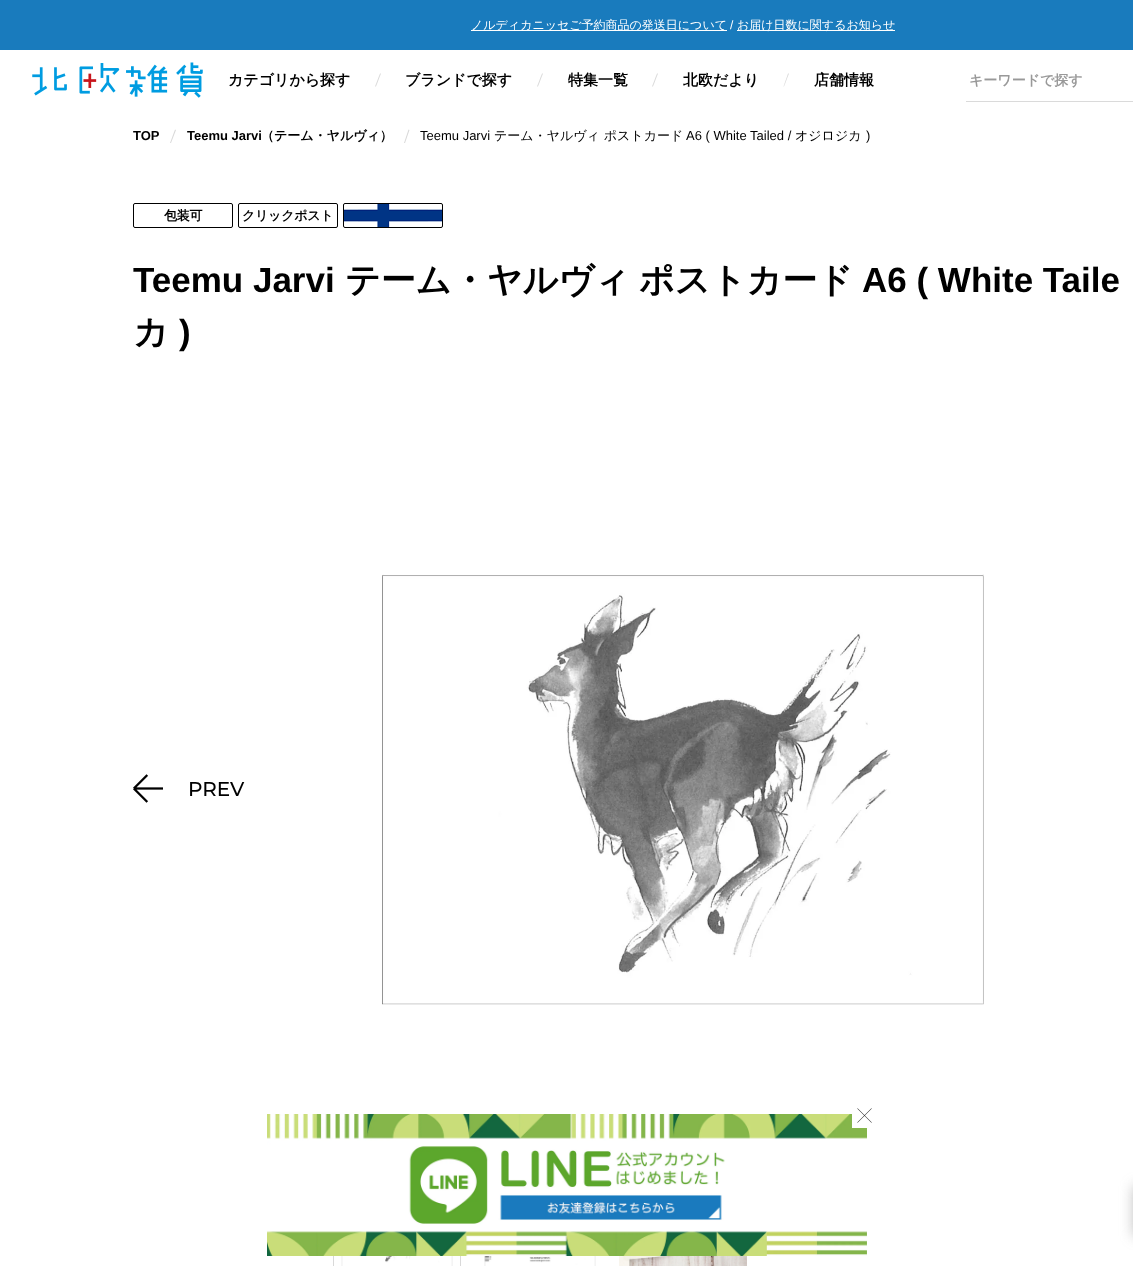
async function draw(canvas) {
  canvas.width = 1133
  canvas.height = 1266
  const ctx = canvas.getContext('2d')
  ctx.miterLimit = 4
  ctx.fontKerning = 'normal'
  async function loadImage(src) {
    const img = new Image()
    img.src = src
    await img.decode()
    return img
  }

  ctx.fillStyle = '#fff'
  ctx.fillRect(0, 0, 1133, 1266)
  ctx.fillStyle = '#197bbd'
  ctx.fillRect(0, 0, 1133, 50)
  ctx.fillStyle = '#fff'
  ctx.fillRect(471, 30, 256, 1)
  ctx.font = '500 12px WenQuanYi Zen Hei'
  ctx.fillText('ノルディカニッセご予約商品の発送日について', 471, 29)
  ctx.font = '12px Liberation Sans'
  ctx.fillText('/', 730, 29)
  ctx.fillRect(737, 30, 158, 1)
  ctx.font = '500 12px WenQuanYi Zen Hei'
  ctx.fillText('お届け日数に関するお知らせ', 737, 29)
  ctx.drawImage(await loadImage('image0.png'), 32, 62, 171, 36)
  ctx.font = 'bold 15px WenQuanYi Zen Hei'
  ctx.fillStyle = '#000'
  ctx.fillText('カテゴリから探す', 228, 85)
  ctx.fillStyle = '#d9d9d9'
  ctx.beginPath()
  ctx.moveTo(380, 73.5)
  ctx.lineTo(381, 73.5)
  ctx.lineTo(376, 86.5)
  ctx.lineTo(375, 86.5)
  ctx.closePath()
  ctx.fill()
  ctx.fillStyle = '#000'
  ctx.fillText('ブランドで探す', 405, 85)
  ctx.fillStyle = '#d9d9d9'
  ctx.beginPath()
  ctx.moveTo(542, 73.5)
  ctx.lineTo(543, 73.5)
  ctx.lineTo(538, 86.5)
  ctx.lineTo(537, 86.5)
  ctx.closePath()
  ctx.fill()
  ctx.fillStyle = '#000'
  ctx.fillText('特集一覧', 568, 85)
  ctx.fillStyle = '#d9d9d9'
  ctx.beginPath()
  ctx.moveTo(657, 73.5)
  ctx.lineTo(658, 73.5)
  ctx.lineTo(653, 86.5)
  ctx.lineTo(652, 86.5)
  ctx.closePath()
  ctx.fill()
  ctx.fillStyle = '#000'
  ctx.fillText('北欧だより', 683, 85)
  ctx.fillStyle = '#d9d9d9'
  ctx.beginPath()
  ctx.moveTo(788, 73.5)
  ctx.lineTo(789, 73.5)
  ctx.lineTo(784, 86.5)
  ctx.lineTo(783.5, 86.5)
  ctx.closePath()
  ctx.fill()
  ctx.fillStyle = '#000'
  ctx.fillText('店舗情報', 814, 85)
  ctx.font = 'bold 14px WenQuanYi Zen Hei'
  ctx.fillStyle = '#999'
  ctx.fillText('キーワードで探す', 969, 85)
  ctx.fillStyle = '#dadada'
  ctx.fillRect(966, 101, 167, 1)
  ctx.font = 'bold 13px Liberation Sans'
  ctx.fillStyle = '#000'
  ctx.fillText('TOP', 133, 140)
  ctx.fillStyle = '#d9d9d9'
  ctx.beginPath()
  ctx.moveTo(175, 129.5)
  ctx.lineTo(176, 130)
  ctx.lineTo(171, 143)
  ctx.lineTo(170, 143)
  ctx.closePath()
  ctx.fill()
  ctx.fillStyle = '#000'
  ctx.fillText('Teemu Jarvi', 187, 140)
  ctx.font = 'bold 13px WenQuanYi Zen Hei'
  ctx.fillText('（テーム・ヤルヴィ）', 261, 140)
  ctx.fillStyle = '#d9d9d9'
  ctx.beginPath()
  ctx.moveTo(408.5, 129.5)
  ctx.lineTo(409.5, 130)
  ctx.lineTo(405, 143)
  ctx.lineTo(404, 143)
  ctx.closePath()
  ctx.fill()
  ctx.font = '13px Liberation Sans'
  ctx.fillStyle = '#000'
  ctx.fillText('Teemu Jarvi', 420, 140)
  ctx.font = '500 13px WenQuanYi Zen Hei'
  ctx.fillText('テーム・ヤルヴィ ポストカード', 494, 140)
  ctx.font = '13px Liberation Sans'
  ctx.fillText('A6 ( White Tailed /', 686, 140)
  ctx.font = '500 13px WenQuanYi Zen Hei'
  ctx.fillText('オジロジカ', 795, 140)
  ctx.font = '13px Liberation Sans'
  ctx.fillText(')', 866, 140)
  ctx.beginPath()
  ctx.roundRect(133.5, 203.5, 99, 24, 1.5)
  ctx.strokeStyle = '#000'
  ctx.stroke()
  ctx.letterSpacing = '-0.25px'
  ctx.font = 'bold 13px WenQuanYi Zen Hei'
  ctx.fillText('包装可', 164, 220)
  ctx.beginPath()
  ctx.roundRect(238.5, 203.5, 99, 24, 1.5)
  ctx.stroke()
  ctx.fillText('クリックポスト', 242, 220)
  ctx.drawImage(await loadImage('image1.png'), 343, 203, 100, 25)
  ctx.beginPath()
  ctx.roundRect(343.5, 203.5, 99, 24, 1.5)
  ctx.stroke()
  ctx.letterSpacing = '0px'
  ctx.font = 'bold 35px Liberation Sans'
  ctx.fillText('Teemu Jarvi', 133, 292)
  ctx.font = 'bold 35px WenQuanYi Zen Hei'
  ctx.fillText('テーム・ヤルヴィ', 345, 292)
  ctx.fillText('ポストカード', 639, 292)
  ctx.font = 'bold 35px Liberation Sans'
  ctx.fillText('A6 ( White Taile', 862, 292)
  ctx.font = 'bold 35px WenQuanYi Zen Hei'
  ctx.fillText('カ', 133, 344)
  ctx.font = 'bold 35px Liberation Sans'
  ctx.fillText(')', 179, 344)
  ctx.drawImage(await loadImage('image2.png'), 133, 774, 30, 29)
  ctx.font = '500 20px Montserrat'
  ctx.fillText('PREV', 188, 796)
  ctx.drawImage(await loadImage('image3.png'), 382, 574, 602, 431)
  ctx.drawImage(await loadImage('image4.png'), 341, 1256, 112, 10)
  ctx.strokeStyle = '#d9d9d9'
  ctx.strokeRect(333.5, 1164.5, 127, 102)
  ctx.drawImage(await loadImage('image5.png'), 484, 1256, 112, 10)
  ctx.drawImage(await loadImage('image6.png'), 619, 1256, 128, 10)
  ctx.drawImage(await loadImage('image8.png'), 267, 1114, 600, 142)
  ctx.fillStyle = '#fff'
  ctx.fillRect(852, 1114, 15, 14)
  ctx.drawImage(await loadImage('image7.png'), 857, 1108, 15, 15)
  ctx.fillStyle = '#75757580'
  ctx.filter = 'blur(7px)'
  ctx.beginPath()
  ctx.rect(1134, 1186, 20, 50)
  ctx.fill()
  ctx.filter = 'none'
}

draw(document.querySelector('canvas'))
